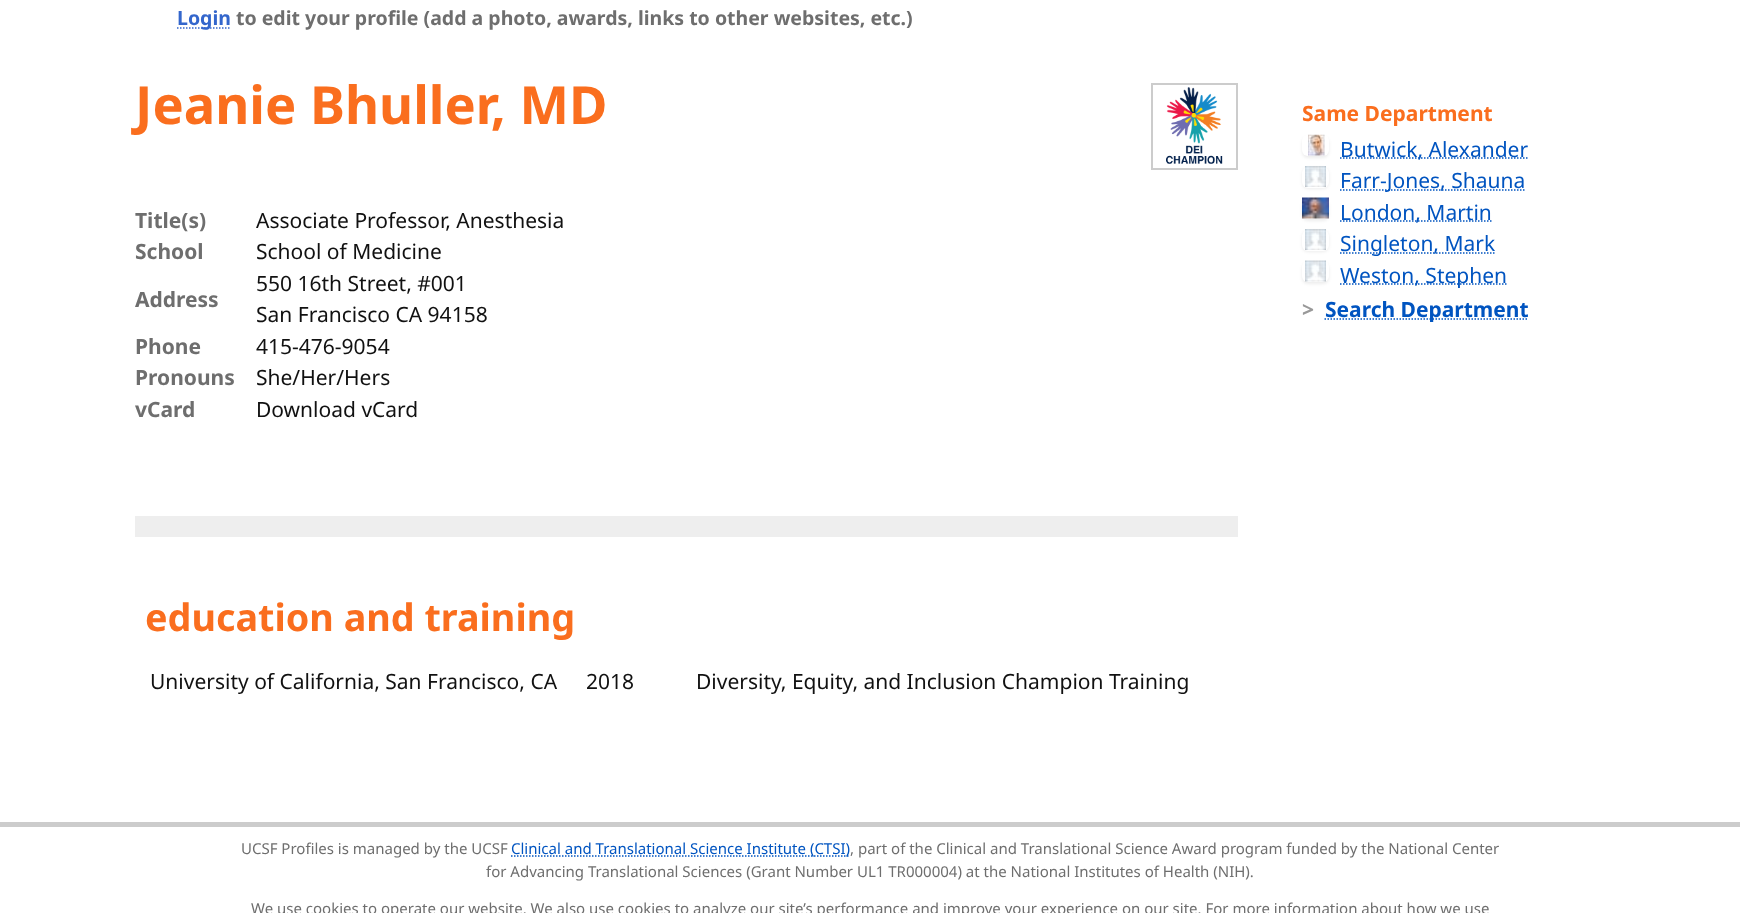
async function draw(canvas) {
  canvas.width = 1740
  canvas.height = 913
  const ctx = canvas.getContext('2d')
  ctx.miterLimit = 4
  ctx.fontKerning = 'normal'
  async function loadImage(src) {
    const img = new Image()
    img.src = src
    await img.decode()
    return img
  }

  ctx.fillStyle = '#fff'
  ctx.fillRect(0, 0, 1740, 913)
  ctx.beginPath()
  ctx.moveTo(177, 28)
  ctx.lineTo(231, 28)
  ctx.strokeStyle = '#36c'
  ctx.lineWidth = 1.5
  ctx.setLineDash([1.5, 1.5])
  ctx.stroke()
  ctx.font = 'bold 19.5px Noto Sans'
  ctx.fillStyle = '#36c'
  ctx.fillText('Login', 177, 25)
  ctx.fillStyle = '#6e6e6e'
  ctx.fillText('to edit your profile (add a photo, awards, links to other websites, etc.)', 236, 25)
  ctx.font = 'bold 52.5px Noto Sans'
  ctx.fillStyle = '#fa6e1e'
  ctx.fillText('Jeanie Bhuller, MD', 135, 124)
  ctx.strokeStyle = '#ccc'
  ctx.lineWidth = 2
  ctx.setLineDash([])
  ctx.strokeRect(1152, 84, 85, 85)
  ctx.drawImage(await loadImage('image0.png'), 1166, 87, 57, 77)
  ctx.font = 'bold 21px Noto Sans'
  ctx.fillStyle = '#6e6e6e'
  ctx.fillText('Title(s)', 135, 228)
  ctx.font = '21px Noto Sans'
  ctx.fillStyle = '#111'
  ctx.fillText('Associate Professor, Anesthesia', 256, 228)
  ctx.font = 'bold 21px Noto Sans'
  ctx.fillStyle = '#6e6e6e'
  ctx.fillText('School', 135, 259)
  ctx.font = '21px Noto Sans'
  ctx.fillStyle = '#111'
  ctx.fillText('School of Medicine', 256, 259)
  ctx.font = 'bold 21px Noto Sans'
  ctx.fillStyle = '#6e6e6e'
  ctx.fillText('Address', 135, 307)
  ctx.font = '21px Noto Sans'
  ctx.fillStyle = '#111'
  ctx.fillText('550 16th Street, #001', 256, 291)
  ctx.fillText('San Francisco CA 94158', 256, 322)
  ctx.font = 'bold 21px Noto Sans'
  ctx.fillStyle = '#6e6e6e'
  ctx.fillText('Phone', 135, 354)
  ctx.font = '21px Noto Sans'
  ctx.fillStyle = '#111'
  ctx.fillText('415-476-9054', 256, 354)
  ctx.font = 'bold 21px Noto Sans'
  ctx.fillStyle = '#6e6e6e'
  ctx.fillText('Pronouns', 135, 385)
  ctx.font = '21px Noto Sans'
  ctx.fillStyle = '#111'
  ctx.fillText('She/Her/Hers', 256, 385)
  ctx.font = 'bold 21px Noto Sans'
  ctx.fillStyle = '#6e6e6e'
  ctx.fillText('vCard', 135, 417)
  ctx.font = '21px Noto Sans'
  ctx.fillStyle = '#111'
  ctx.fillText('Download vCard', 256, 417)
  ctx.fillStyle = '#eee'
  ctx.fillRect(135, 516, 1103, 21)
  ctx.font = 'bold 37.75px Noto Sans'
  ctx.fillStyle = '#fa6e1e'
  ctx.fillText('education and training', 145, 631)
  ctx.font = '21px Noto Sans'
  ctx.fillStyle = '#111'
  ctx.fillText('University of California, San Francisco, CA', 150, 689)
  ctx.fillText('2018', 586, 689)
  ctx.fillText('Diversity, Equity, and Inclusion Champion Training', 696, 689)
  ctx.font = 'bold 21px Noto Sans'
  ctx.fillStyle = '#fa6e1e'
  ctx.fillText('Same Department', 1302, 121)
  ctx.fillStyle = '#00000012'
  ctx.filter = 'blur(1.5px)'
  ctx.beginPath()
  ctx.roundRect(1302, 137, 27, 21, 6)
  ctx.fill()
  ctx.filter = 'none'
  ctx.fillStyle = '#fff'
  ctx.beginPath()
  ctx.roundRect(1302, 135, 27, 21, 6)
  ctx.fill()
  ctx.drawImage(await loadImage('image1.png'), 1308, 134, 17, 22)
  ctx.beginPath()
  ctx.moveTo(1340, 158)
  ctx.lineTo(1528, 158)
  ctx.strokeStyle = '#0054c0'
  ctx.lineWidth = 1.5
  ctx.setLineDash([1.5, 1.5])
  ctx.stroke()
  ctx.font = '21px Noto Sans'
  ctx.fillStyle = '#0054c0'
  ctx.fillText('Butwick, Alexander', 1340, 157)
  ctx.fillStyle = '#00000012'
  ctx.filter = 'blur(1.5px)'
  ctx.beginPath()
  ctx.roundRect(1302, 168, 27, 21, 6)
  ctx.fill()
  ctx.filter = 'none'
  ctx.fillStyle = '#fff'
  ctx.beginPath()
  ctx.roundRect(1302, 167, 27, 21, 6)
  ctx.fill()
  ctx.drawImage(await loadImage('image2.png'), 1305, 166, 21, 21)
  ctx.beginPath()
  ctx.moveTo(1340, 190)
  ctx.lineTo(1525, 190)
  ctx.stroke()
  ctx.fillStyle = '#0054c0'
  ctx.fillText('Farr-Jones, Shauna', 1340, 188)
  ctx.fillStyle = '#00000012'
  ctx.filter = 'blur(1.5px)'
  ctx.beginPath()
  ctx.roundRect(1302, 200, 27, 21, 6)
  ctx.fill()
  ctx.filter = 'none'
  ctx.fillStyle = '#fff'
  ctx.beginPath()
  ctx.roundRect(1302, 198, 27, 21, 6)
  ctx.fill()
  ctx.drawImage(await loadImage('image3.png'), 1302, 197, 27, 22)
  ctx.beginPath()
  ctx.moveTo(1340, 221)
  ctx.lineTo(1491.5, 221)
  ctx.stroke()
  ctx.fillStyle = '#0054c0'
  ctx.fillText('London, Martin', 1340, 220)
  ctx.fillStyle = '#00000012'
  ctx.filter = 'blur(1.5px)'
  ctx.beginPath()
  ctx.roundRect(1302, 231, 27, 21, 6)
  ctx.fill()
  ctx.filter = 'none'
  ctx.fillStyle = '#fff'
  ctx.beginPath()
  ctx.roundRect(1302, 230, 27, 21, 6)
  ctx.fill()
  ctx.drawImage(await loadImage('image2.png'), 1305, 229, 21, 21)
  ctx.beginPath()
  ctx.moveTo(1340, 253)
  ctx.lineTo(1495, 253)
  ctx.stroke()
  ctx.fillStyle = '#0054c0'
  ctx.fillText('Singleton, Mark', 1340, 251)
  ctx.fillStyle = '#00000012'
  ctx.filter = 'blur(1.5px)'
  ctx.beginPath()
  ctx.roundRect(1302, 263, 27, 21, 6)
  ctx.fill()
  ctx.filter = 'none'
  ctx.fillStyle = '#fff'
  ctx.beginPath()
  ctx.roundRect(1302, 261, 27, 21, 6)
  ctx.fill()
  ctx.drawImage(await loadImage('image4.png'), 1305, 260, 21, 22)
  ctx.beginPath()
  ctx.moveTo(1340, 284)
  ctx.lineTo(1507, 284)
  ctx.stroke()
  ctx.fillStyle = '#0054c0'
  ctx.fillText('Weston, Stephen', 1340, 283)
  ctx.font = 'bold 21px Noto Sans'
  ctx.fillStyle = '#999'
  ctx.fillText('>', 1302, 317)
  ctx.beginPath()
  ctx.moveTo(1324.5, 319)
  ctx.lineTo(1528, 319)
  ctx.stroke()
  ctx.fillStyle = '#0054c0'
  ctx.fillText('Search Department', 1325, 317)
  ctx.fillStyle = '#ccc'
  ctx.fillRect(0, 822, 1740, 5)
  ctx.font = '15px Noto Sans'
  ctx.fillStyle = '#6e6e6e'
  ctx.fillText('UCSF Profiles is managed by the UCSF', 241, 854)
  ctx.beginPath()
  ctx.moveTo(511, 856)
  ctx.lineTo(850, 856)
  ctx.stroke()
  ctx.fillStyle = '#0054c0'
  ctx.fillText('Clinical and Translational Science Institute (CTSI)', 511, 854)
  ctx.fillStyle = '#6e6e6e'
  ctx.fillText(', part of the Clinical and Translational Science Award program funded by the National Center', 850, 854)
  ctx.fillText('for Advancing Translational Sciences (Grant Number UL1 TR000004) at the National Institutes of Health (NIH).', 486, 877)
  ctx.fillText('We use cookies to operate our website. We also use cookies to analyze our site’s performance and improve your experience on our site. For more information about how we use', 251, 914)
}

draw(document.querySelector('canvas'))
